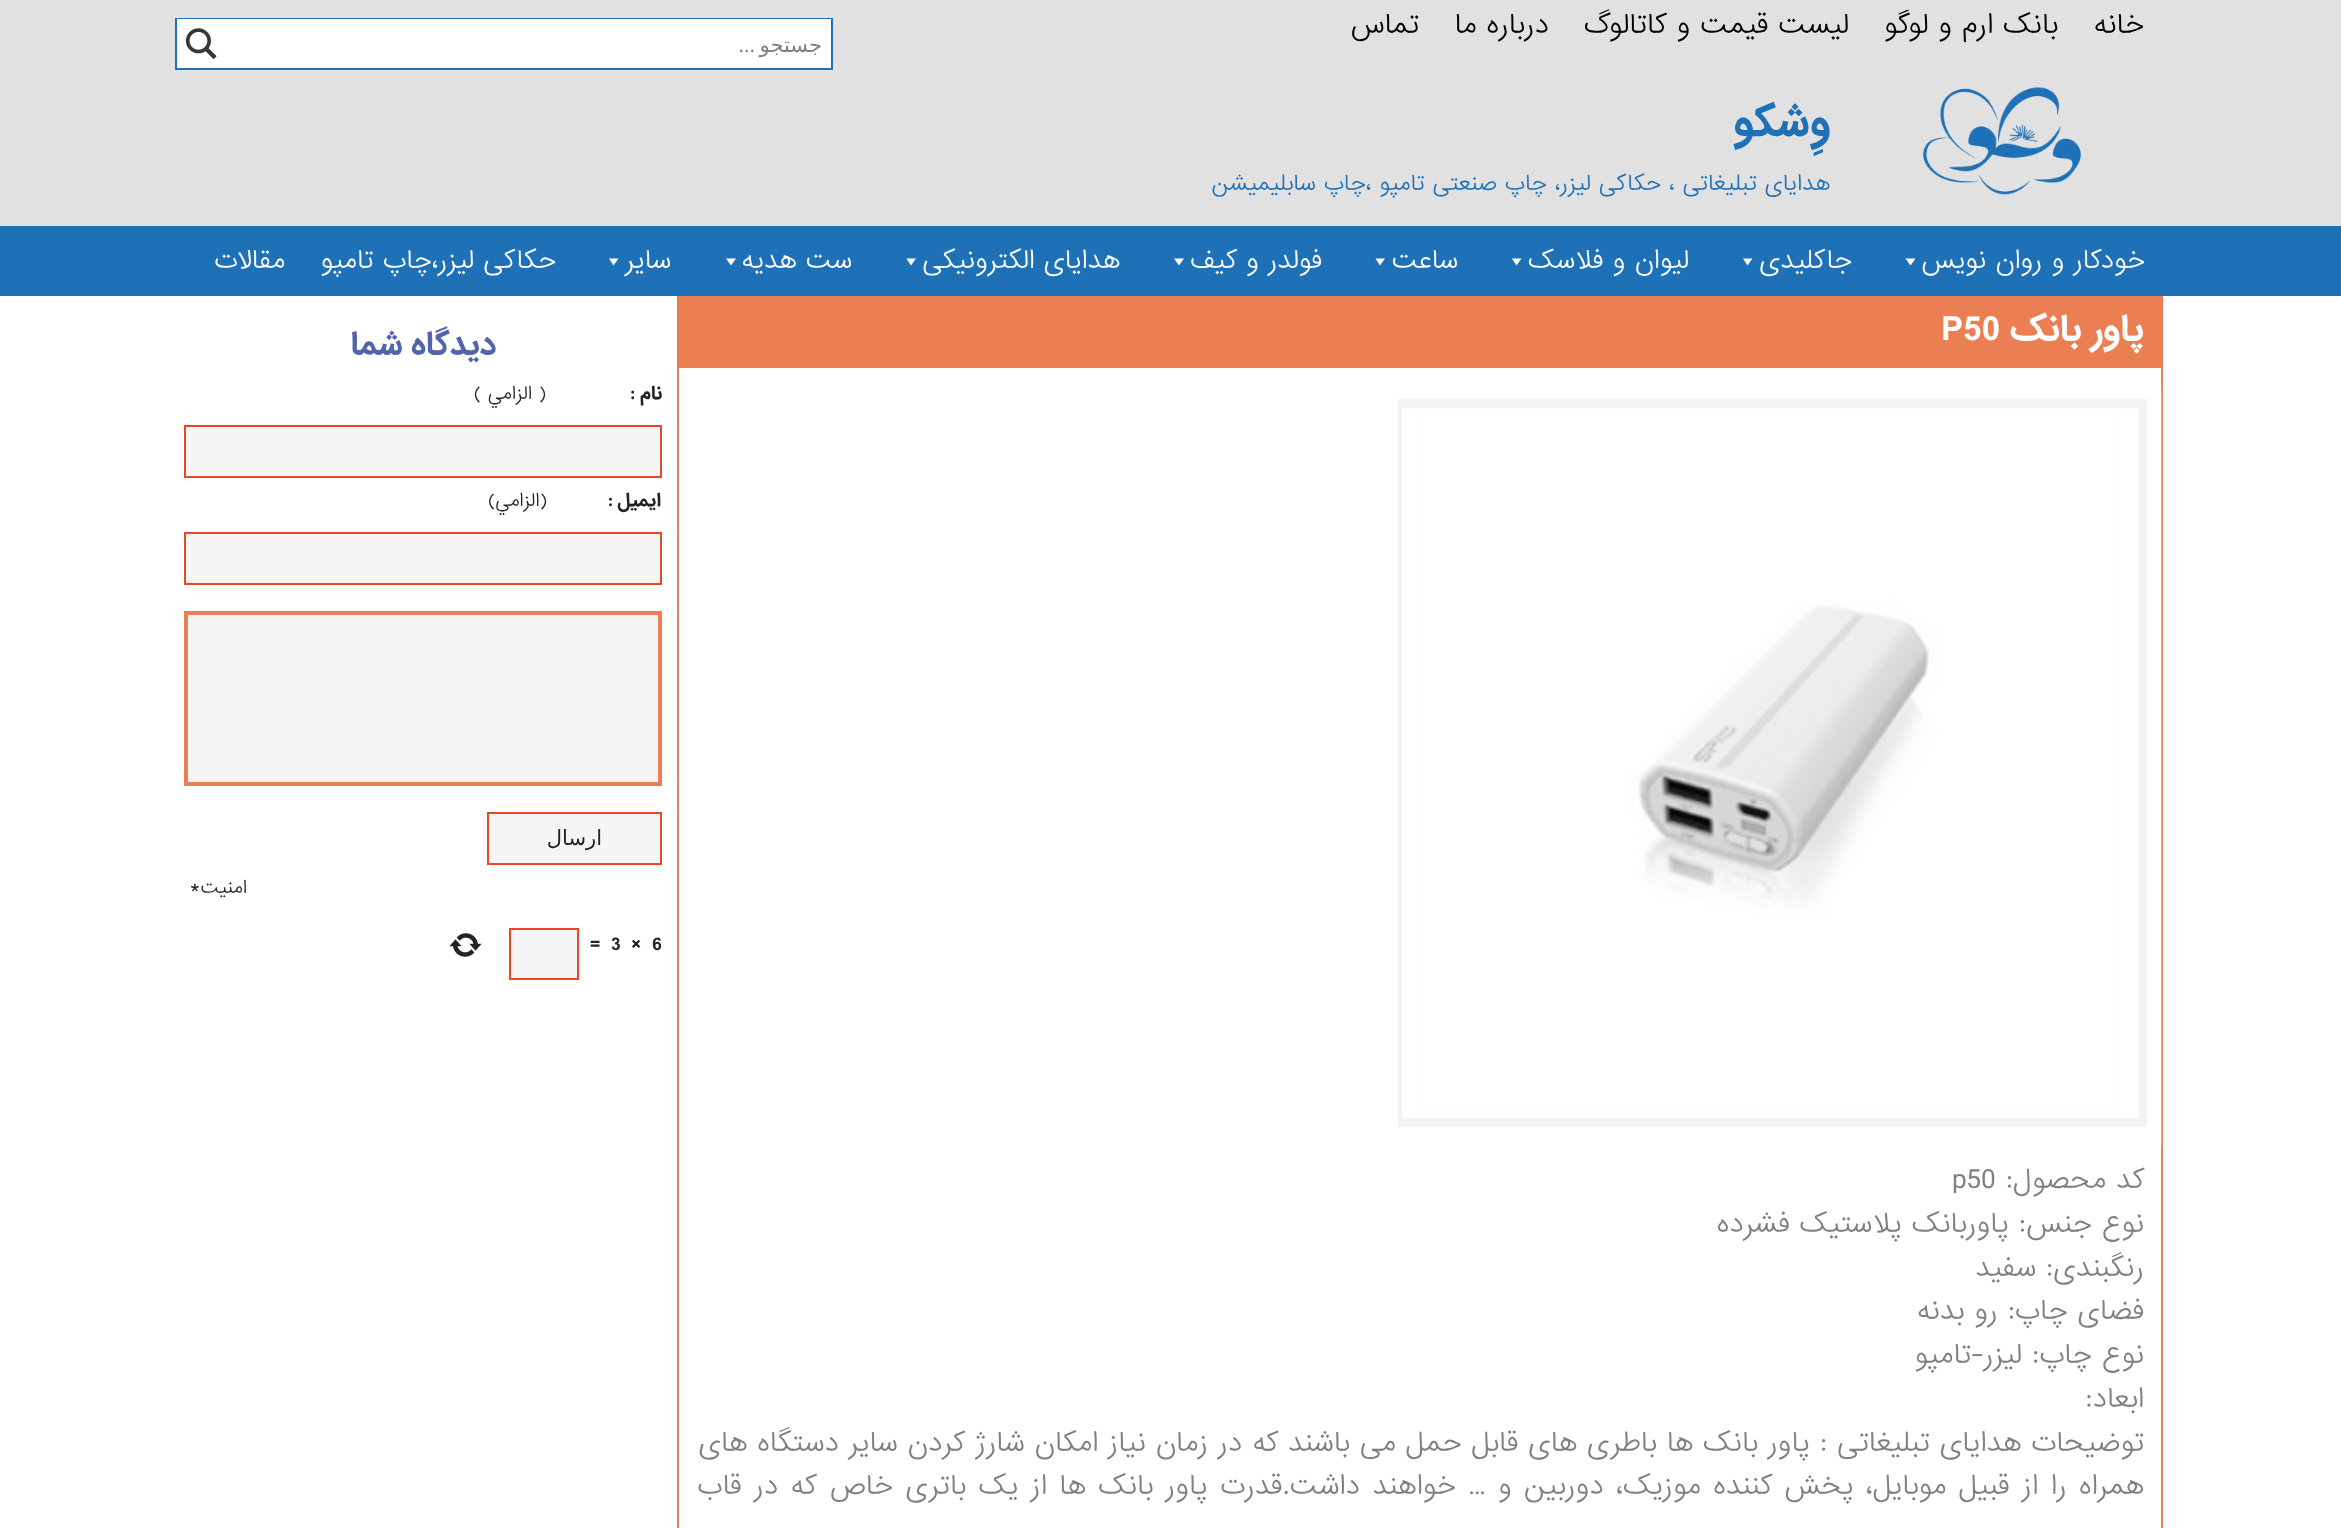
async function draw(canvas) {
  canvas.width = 2341
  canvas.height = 1528
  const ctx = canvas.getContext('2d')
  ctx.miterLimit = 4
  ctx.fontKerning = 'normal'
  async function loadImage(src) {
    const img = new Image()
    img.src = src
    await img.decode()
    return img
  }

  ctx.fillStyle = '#fff'
  ctx.fillRect(0, 0, 2341, 1528)
  ctx.fillStyle = '#e1e1e1'
  ctx.fillRect(0, 0, 2341, 226)
  ctx.direction = 'rtl'
  ctx.font = '300 26.25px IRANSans'
  ctx.fillStyle = '#000'
  ctx.fillText('خانه', 2144, 33)
  ctx.fillText('بانک ارم و لوگو', 2058, 33)
  ctx.fillText('لیست قیمت و کاتالوگ', 1849, 33)
  ctx.fillText('درباره ما', 1549, 33)
  ctx.fillText('تماس', 1419, 33)
  ctx.fillStyle = '#e4e4e4'
  ctx.fillRect(175, 70, 658, 2)
  ctx.strokeStyle = '#1f71b7'
  ctx.lineWidth = 2
  ctx.strokeRect(176, 19, 656, 50)
  ctx.fillStyle = '#fff'
  ctx.fillRect(177, 19, 654, 49)
  ctx.font = '21px DejaVu Sans'
  ctx.fillStyle = '#808080'
  ctx.fillText('جستجو', 822, 52)
  ctx.font = '21px Open Sans'
  ctx.fillText('...', 755, 52)
  ctx.drawImage(await loadImage('image0.png'), 185, 28, 32, 32)
  ctx.drawImage(await loadImage('image1.png'), 1923, 87, 158, 108)
  ctx.font = 'bold 40px IRANSans'
  ctx.fillStyle = '#1f71b7'
  ctx.fillText('وِشکو', 1830, 135)
  ctx.font = '300 21px IRANSans'
  ctx.fillText('هدایای تبلیغاتی ، حکاکی لیزر، چاپ صنعتی تامپو ،چاپ سابلیمیشن', 1830, 190)
  ctx.fillRect(0, 226, 2341, 70)
  ctx.font = '300 24.5px IRANSans'
  ctx.fillStyle = '#fff'
  ctx.fillText('خودکار و روان نویس', 2145, 268)
  ctx.beginPath()
  ctx.moveTo(1915.5, 258.5)
  ctx.lineTo(1910.5, 265.5)
  ctx.lineTo(1905.5, 258.5)
  ctx.closePath()
  ctx.fill()
  ctx.fillText('جاکلیدی', 1852, 268)
  ctx.beginPath()
  ctx.moveTo(1752.5, 258.5)
  ctx.lineTo(1747.5, 265.5)
  ctx.lineTo(1743, 258.5)
  ctx.closePath()
  ctx.fill()
  ctx.fillText('لیوان و فلاسک', 1689, 268)
  ctx.beginPath()
  ctx.moveTo(1521.5, 258.5)
  ctx.lineTo(1516.5, 265.5)
  ctx.lineTo(1512, 258.5)
  ctx.closePath()
  ctx.fill()
  ctx.fillText('ساعت', 1458, 268)
  ctx.beginPath()
  ctx.moveTo(1385, 258.5)
  ctx.lineTo(1380, 265.5)
  ctx.lineTo(1375.5, 258.5)
  ctx.closePath()
  ctx.fill()
  ctx.fillText('فولدر و کیف', 1322, 268)
  ctx.beginPath()
  ctx.moveTo(1184, 258.5)
  ctx.lineTo(1179, 265.5)
  ctx.lineTo(1174, 258.5)
  ctx.closePath()
  ctx.fill()
  ctx.fillText('هدایای الکترونیکی', 1120, 268)
  ctx.beginPath()
  ctx.moveTo(916, 258.5)
  ctx.lineTo(911, 265.5)
  ctx.lineTo(906.5, 258.5)
  ctx.closePath()
  ctx.fill()
  ctx.fillText('ست هدیه', 852, 268)
  ctx.beginPath()
  ctx.moveTo(736, 258.5)
  ctx.lineTo(731, 265.5)
  ctx.lineTo(726, 258.5)
  ctx.closePath()
  ctx.fill()
  ctx.fillText('سایر', 671, 268)
  ctx.beginPath()
  ctx.moveTo(618.5, 258.5)
  ctx.lineTo(613.5, 265.5)
  ctx.lineTo(609, 258.5)
  ctx.closePath()
  ctx.fill()
  ctx.fillText('حکاکی لیزر،چاپ تامپو', 556, 268)
  ctx.fillText('مقالات', 285, 268)
  ctx.fillStyle = '#ea7f54'
  ctx.fillRect(2161, 296, 2, 1232)
  ctx.fillRect(677, 296, 2, 1232)
  ctx.fillRect(679, 296, 1482, 72)
  ctx.font = 'bold 33.25px IRANSans'
  ctx.fillStyle = '#fff'
  ctx.fillText('پاور بانک', 2144, 340)
  ctx.direction = 'ltr'
  ctx.fillText('P50', 1941, 340)
  ctx.drawImage(await loadImage('image2.png'), 1398, 385, 764, 765)
  ctx.direction = 'rtl'
  ctx.font = '300 26.25px IRANSans'
  ctx.fillStyle = '#808080'
  ctx.fillText('کد محصول:', 2144, 1188)
  ctx.direction = 'ltr'
  ctx.fillText('p50', 1952, 1188)
  ctx.direction = 'rtl'
  ctx.fillText('نوع جنس: پاوربانک پلاستیک فشرده', 2144, 1232)
  ctx.fillText('رنگبندی: سفید', 2144, 1276)
  ctx.fillText('فضای چاپ: رو بدنه', 2144, 1319)
  ctx.fillText('نوع چاپ: لیزر-تامپو', 2144, 1363)
  ctx.fillText('ابعاد:', 2144, 1407)
  ctx.fillText('توضیحات هدایای تبلیغاتی : پاور بانک ها باطری های قابل حمل می باشند که در زمان نیاز امکان شارژ کردن سایر دستگاه های', 2144, 1451)
  ctx.wordSpacing = '2.5px'
  ctx.fillText('همراه را از قبیل موبایل، پخش کننده موزیک، دوربین و … خواهند داشت.قدرت پاور بانک ها از یک باتری خاص که در قاب', 2144, 1494)
  ctx.wordSpacing = '0px'
  ctx.font = 'bold 29.75px IRANSans'
  ctx.fillStyle = '#5164ad'
  ctx.fillText('دیدگاه شما', 496, 354)
  ctx.font = 'bold 17.5px IRANSans'
  ctx.fillStyle = '#242424'
  ctx.fillText('نام :', 662, 399)
  ctx.font = '300 17.5px IRANSans'
  ctx.fillText('( الزامي )', 546, 399)
  ctx.fillStyle = '#f5f5f5'
  ctx.beginPath()
  ctx.rect(185, 426, 476, 51)
  ctx.fill()
  ctx.strokeStyle = '#ec4725'
  ctx.stroke()
  ctx.font = 'bold 17.5px IRANSans'
  ctx.fillStyle = '#242424'
  ctx.fillText('ايميل :', 661, 506)
  ctx.font = '300 17.5px IRANSans'
  ctx.fillText('(الزامي)', 547, 506)
  ctx.fillStyle = '#f5f5f5'
  ctx.beginPath()
  ctx.rect(185, 533, 476, 51)
  ctx.fill()
  ctx.stroke()
  ctx.beginPath()
  ctx.rect(186, 613, 474, 171)
  ctx.fill()
  ctx.strokeStyle = '#ea7f54'
  ctx.lineWidth = 4
  ctx.stroke()
  ctx.beginPath()
  ctx.rect(488, 813, 173, 51)
  ctx.fill()
  ctx.strokeStyle = '#ec4725'
  ctx.lineWidth = 2
  ctx.stroke()
  ctx.font = '21px DejaVu Sans'
  ctx.fillStyle = '#242424'
  ctx.fillText('ارسال', 602, 845)
  ctx.font = '300 17.5px IRANSans'
  ctx.fillText('امنیت', 247, 893)
  ctx.direction = 'ltr'
  ctx.fillText('*', 190, 893)
  ctx.font = 'bold 17.5px IRANSans'
  ctx.fillText('6', 652, 950)
  ctx.fillText('×', 631, 950)
  ctx.fillText('3', 611, 950)
  ctx.fillText('=', 590, 950)
  ctx.fillStyle = '#f5f5f5'
  ctx.beginPath()
  ctx.rect(510, 929, 68, 50)
  ctx.fill()
  ctx.stroke()
  ctx.drawImage(await loadImage('image3.png'), 449, 933, 33, 24)
}

draw(document.querySelector('canvas'))
